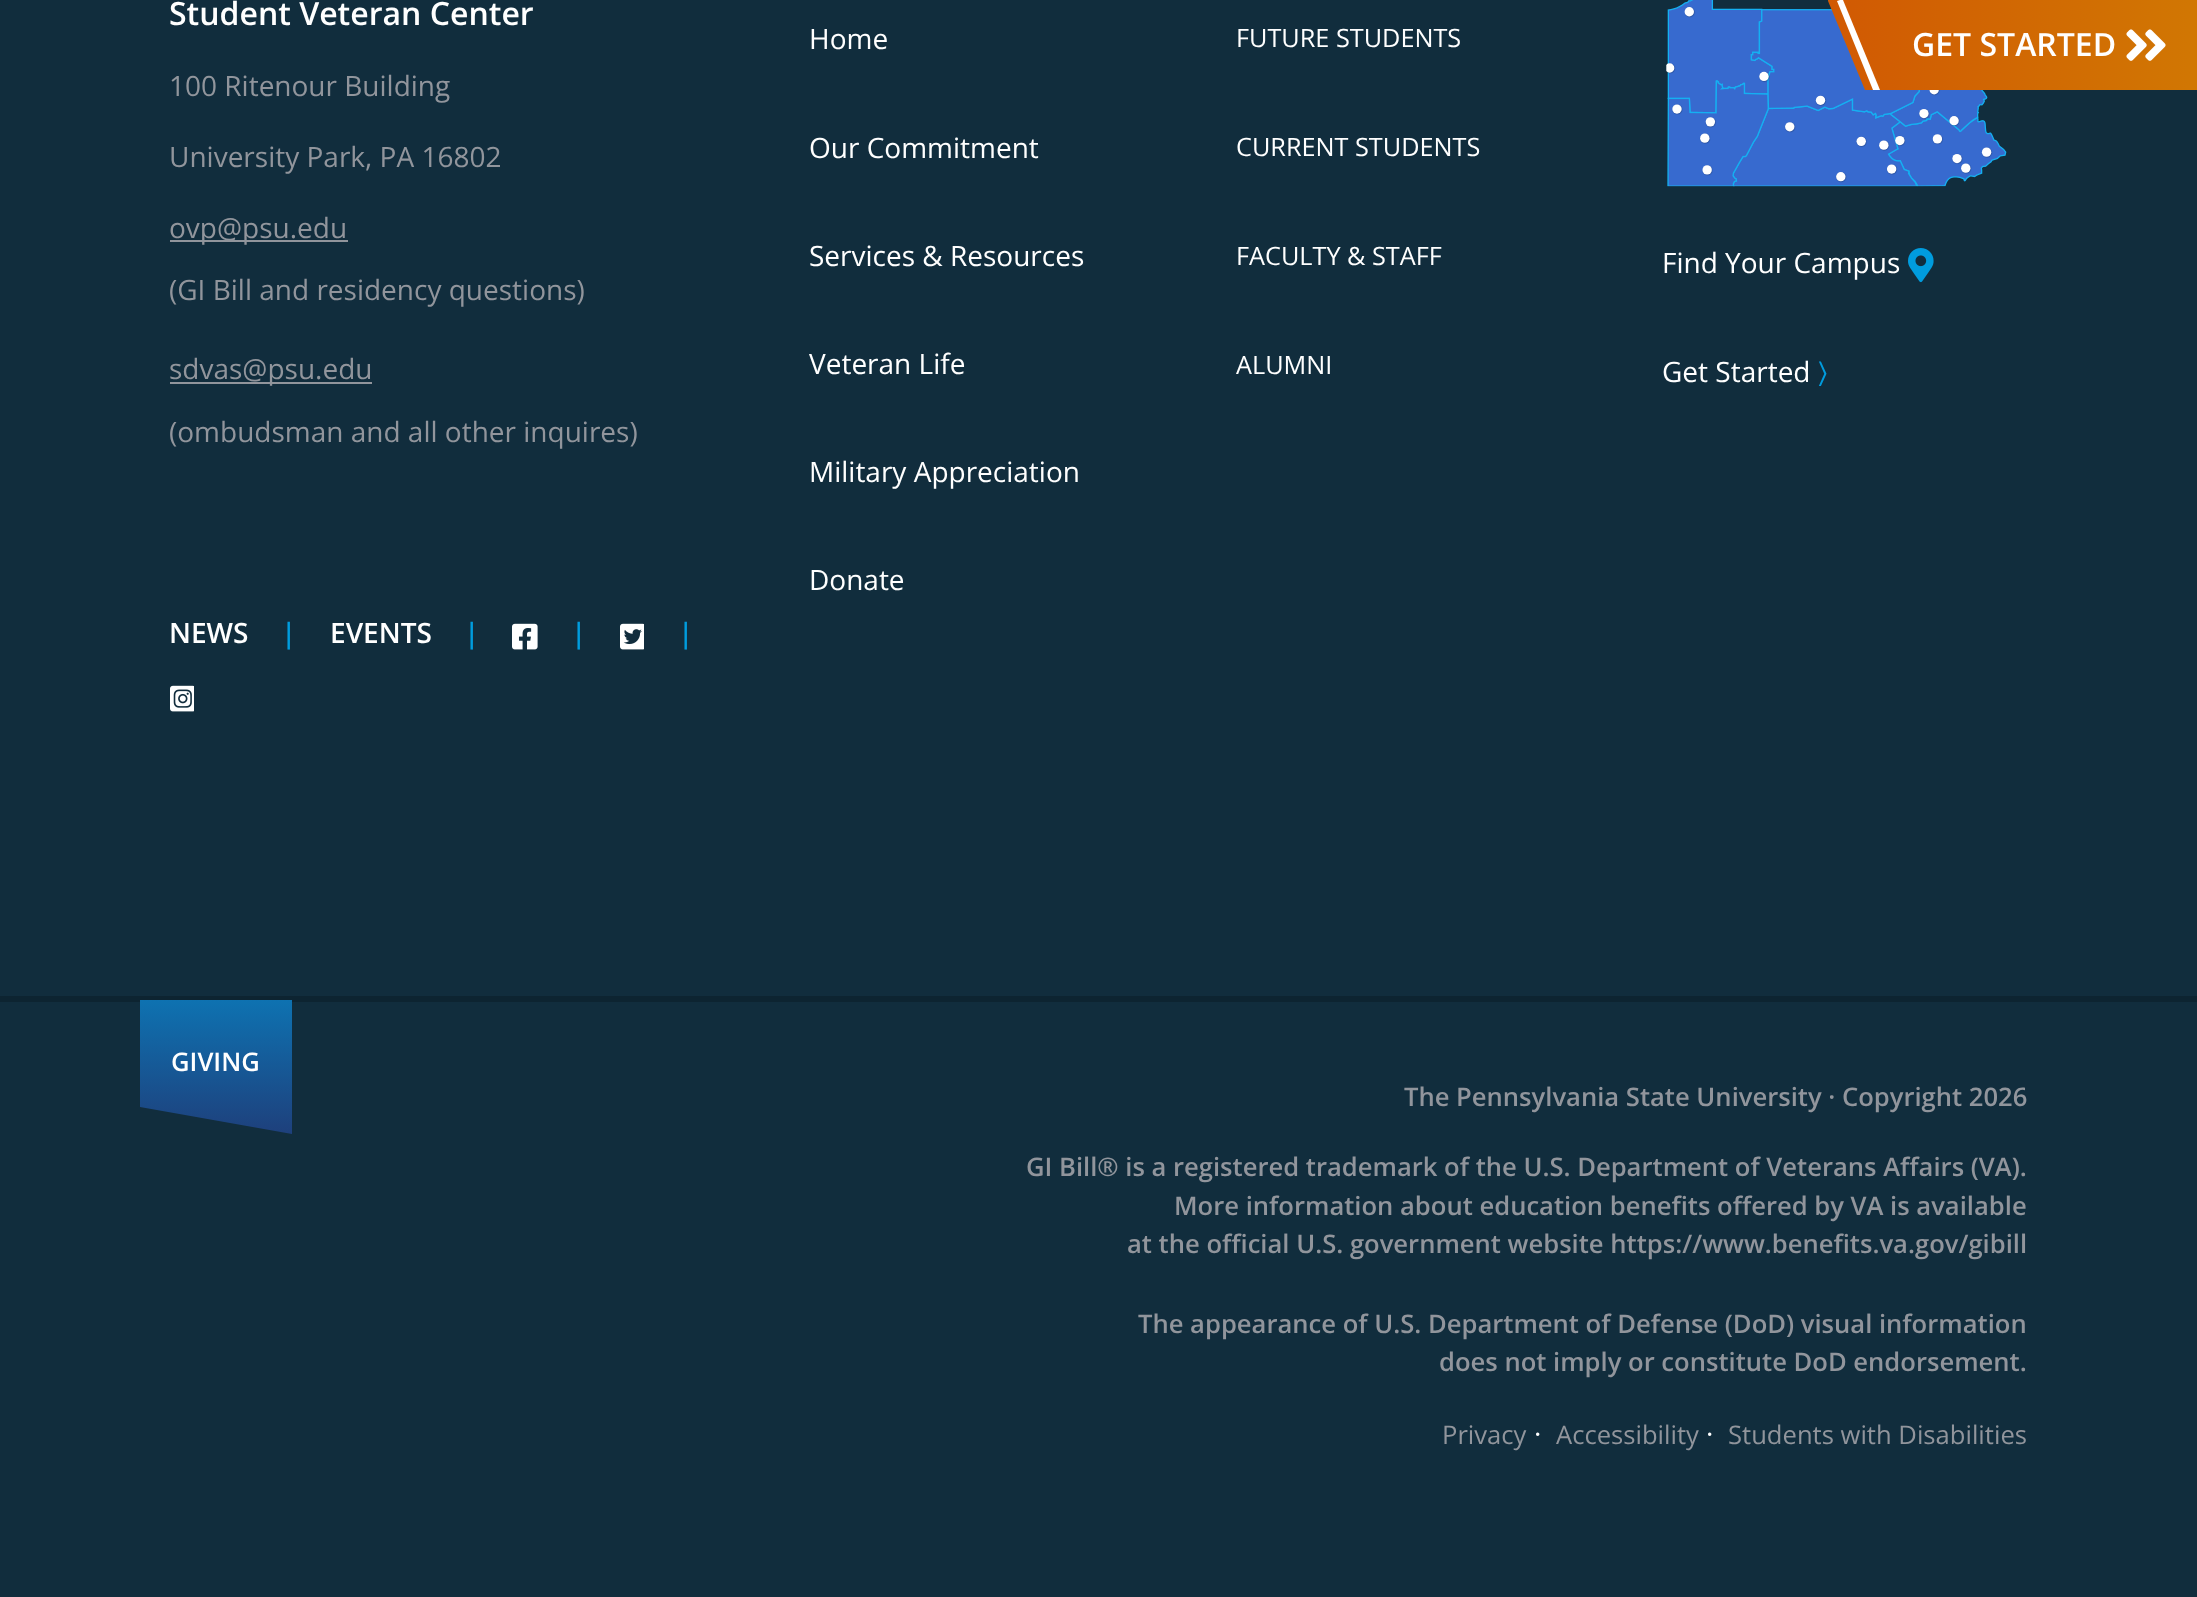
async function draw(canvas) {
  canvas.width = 2197
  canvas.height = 1597
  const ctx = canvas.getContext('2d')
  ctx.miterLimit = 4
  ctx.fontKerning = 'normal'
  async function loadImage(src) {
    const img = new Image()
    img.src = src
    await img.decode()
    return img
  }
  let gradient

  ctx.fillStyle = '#112d3d'
  ctx.fillRect(0, 0, 2197, 1597)
  ctx.font = '600 32px Open Sans'
  ctx.fillStyle = '#fff'
  ctx.fillText('Student Veteran Center', 169, 25)
  ctx.font = '28px Open Sans'
  ctx.fillStyle = '#91959c'
  ctx.fillText('100 Ritenour Building', 169, 96)
  ctx.fillText('University Park, PA 16802', 169, 167)
  ctx.fillRect(170, 240, 178, 2)
  ctx.fillText('ovp@psu.edu', 169, 238)
  ctx.fillText('(GI Bill and residency questions)', 169, 300)
  ctx.fillRect(170, 382, 202, 2)
  ctx.fillText('sdvas@psu.edu', 169, 379)
  ctx.fillText('(ombudsman and all other inquires)', 169, 442)
  ctx.font = '600 28px Open Sans'
  ctx.fillStyle = '#fff'
  ctx.fillText('NEWS', 169, 643)
  ctx.fillStyle = '#009cde'
  ctx.fillText('|', 281, 643)
  ctx.fillStyle = '#fff'
  ctx.fillText('EVENTS', 330, 643)
  ctx.fillStyle = '#009cde'
  ctx.fillText('|', 464, 643)
  ctx.drawImage(await loadImage('image0.png'), 512, 623, 26, 27)
  ctx.fillText('|', 571, 643)
  ctx.drawImage(await loadImage('image1.png'), 620, 623, 24, 27)
  ctx.fillText('|', 678, 643)
  ctx.drawImage(await loadImage('image2.png'), 170, 685, 24, 27)
  ctx.font = '28px Open Sans'
  ctx.fillStyle = '#fff'
  ctx.fillText('Home', 809, 49)
  ctx.fillText('Our Commitment', 809, 158)
  ctx.fillText('Services & Resources', 809, 266)
  ctx.fillText('Veteran Life', 809, 374)
  ctx.fillText('Military Appreciation', 809, 482)
  ctx.fillText('Donate', 809, 590)
  ctx.font = '25.25px Open Sans'
  ctx.fillText('FUTURE STUDENTS', 1236, 47)
  ctx.fillText('CURRENT STUDENTS', 1236, 156)
  ctx.fillText('FACULTY & STAFF', 1236, 265)
  ctx.fillText('ALUMNI', 1236, 374)
  ctx.drawImage(await loadImage('image3.png'), 1667, 0, 340, 187)
  ctx.drawImage(await loadImage('image4.png'), 1666, 7, 327, 176)
  ctx.font = '28px Open Sans'
  ctx.fillText('Find Your Campus', 1662, 273)
  ctx.drawImage(await loadImage('image5.png'), 1908, 248, 26, 35)
  ctx.fillText('Get Started', 1662, 382)
  ctx.font = '28px FreeSans'
  ctx.fillStyle = '#009cde'
  ctx.fillText('〉', 1818, 382)
  ctx.fillStyle = '#0d2431'
  ctx.fillRect(0, 996, 2197, 6)
  gradient = ctx.createLinearGradient(216, 1000, 216, 1134)
  gradient.addColorStop(0, '#0e72b1')
  gradient.addColorStop(1, '#1e407c')
  ctx.fillStyle = gradient
  ctx.beginPath()
  ctx.moveTo(140, 1000)
  ctx.lineTo(292, 1000)
  ctx.lineTo(292, 1134)
  ctx.lineTo(140, 1107)
  ctx.closePath()
  ctx.fill()
  ctx.font = '600 25.6px Open Sans'
  ctx.fillStyle = '#fff'
  ctx.fillText('GIVING', 171, 1071)
  ctx.fillStyle = '#91959c'
  ctx.fillText('The Pennsylvania State University · Copyright 2026', 1404, 1106)
  ctx.fillText('GI Bill® is a registered trademark of the U.S. Department of Veterans Affairs (VA).', 1026, 1176)
  ctx.fillText('More information about education benefits offered by VA is available', 1174, 1215)
  ctx.fillText('at the official U.S. government website https://www.benefits.va.gov/gibill', 1127, 1253)
  ctx.fillText('The appearance of U.S. Department of Defense (DoD) visual information', 1138, 1333)
  ctx.fillText('does not imply or constitute DoD endorsement.', 1439, 1371)
  ctx.font = '25.6px Open Sans'
  ctx.fillText('Privacy', 1442, 1444)
  ctx.font = '28px Open Sans'
  ctx.fillStyle = '#fff'
  ctx.fillText('·', 1534, 1444)
  ctx.font = '25.6px Open Sans'
  ctx.fillStyle = '#91959c'
  ctx.fillText('Accessibility', 1556, 1444)
  ctx.font = '28px Open Sans'
  ctx.fillStyle = '#fff'
  ctx.fillText('·', 1706, 1444)
  ctx.font = '25.6px Open Sans'
  ctx.fillStyle = '#91959c'
  ctx.fillText('Students with Disabilities', 1728, 1444)
  gradient = ctx.createLinearGradient(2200, 45, 1828, 45)
  gradient.addColorStop(0, '#d17703')
  gradient.addColorStop(1, '#d15903')
  ctx.fillStyle = gradient
  ctx.beginPath()
  ctx.moveTo(1828, 0)
  ctx.lineTo(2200, 0)
  ctx.lineTo(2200, 90)
  ctx.lineTo(1865, 90)
  ctx.lineTo(1828, 1)
  ctx.closePath()
  ctx.fill()
  ctx.fillStyle = '#fff'
  ctx.beginPath()
  ctx.moveTo(1837, 1)
  ctx.lineTo(1873, 90)
  ctx.lineTo(1880, 90)
  ctx.lineTo(1843, 0)
  ctx.lineTo(1840, 0)
  ctx.closePath()
  ctx.fill()
  ctx.font = '600 32px Open Sans'
  ctx.fillText('GET STARTED', 1912, 56)
  ctx.drawImage(await loadImage('image6.png'), 2126, 29, 40, 32)
}

draw(document.querySelector('canvas'))
